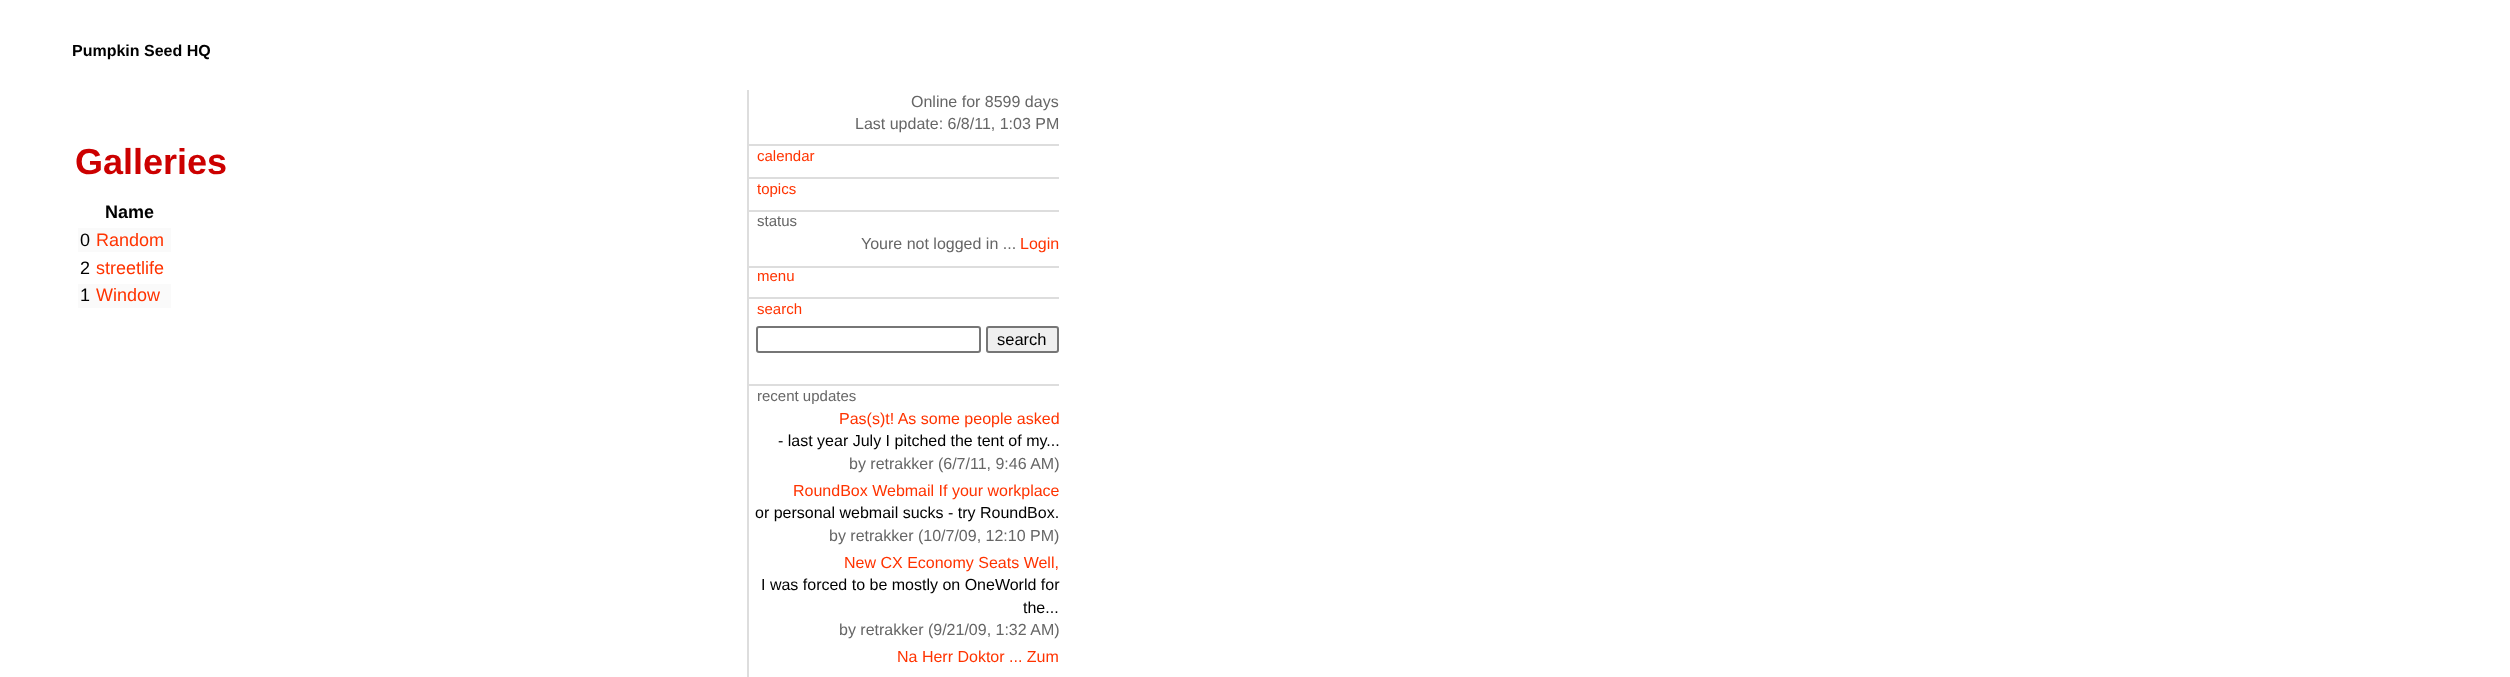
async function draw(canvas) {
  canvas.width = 2510
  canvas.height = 677
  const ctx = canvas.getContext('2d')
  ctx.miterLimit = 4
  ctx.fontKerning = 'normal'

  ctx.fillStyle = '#fff'
  ctx.fillRect(0, 0, 2510, 677)
  ctx.font = 'bold 16px Liberation Sans'
  ctx.fillStyle = '#000'
  ctx.fillText('Pumpkin Seed HQ', 72, 56)
  ctx.font = 'bold 36px Liberation Sans'
  ctx.fillStyle = '#c00'
  ctx.fillText('Galleries', 75, 174)
  ctx.font = 'bold 18px Liberation Sans'
  ctx.fillStyle = '#000'
  ctx.fillText('Name', 105, 218)
  ctx.fillStyle = '#fafafa'
  ctx.fillRect(78, 228, 93, 24)
  ctx.font = '18px Liberation Sans'
  ctx.fillStyle = '#000'
  ctx.fillText('0', 80, 246)
  ctx.fillStyle = '#f30'
  ctx.fillText('Random', 96, 246)
  ctx.fillStyle = '#000'
  ctx.fillText('2', 80, 274)
  ctx.fillStyle = '#f30'
  ctx.fillText('streetlife', 96, 274)
  ctx.fillStyle = '#fafafa'
  ctx.fillRect(78, 284, 93, 24)
  ctx.fillStyle = '#000'
  ctx.fillText('1', 80, 301)
  ctx.fillStyle = '#f30'
  ctx.fillText('Window', 96, 301)
  ctx.fillStyle = '#ddd'
  ctx.fillRect(747, 90, 2, 587)
  ctx.font = '16px Liberation Sans'
  ctx.fillStyle = '#666'
  ctx.fillText('Online for 8599 days', 911, 107)
  ctx.fillText('Last update: 6/8/11, 1:03 PM', 855, 129)
  ctx.fillStyle = '#ddd'
  ctx.fillRect(749, 144, 310, 2)
  ctx.font = '15px Liberation Sans'
  ctx.fillStyle = '#f30'
  ctx.fillText('calendar', 757, 161)
  ctx.fillStyle = '#ddd'
  ctx.fillRect(749, 177, 310, 2)
  ctx.fillStyle = '#f30'
  ctx.fillText('topics', 757, 194)
  ctx.fillStyle = '#ddd'
  ctx.fillRect(749, 210, 310, 2)
  ctx.fillStyle = '#666'
  ctx.fillText('status', 757, 226)
  ctx.font = '16px Liberation Sans'
  ctx.fillText('Youre not logged in ...', 861, 249)
  ctx.fillStyle = '#f30'
  ctx.fillText('Login', 1020, 249)
  ctx.fillStyle = '#ddd'
  ctx.fillRect(749, 266, 310, 2)
  ctx.font = '15px Liberation Sans'
  ctx.fillStyle = '#f30'
  ctx.fillText('menu', 757, 281)
  ctx.fillStyle = '#ddd'
  ctx.fillRect(749, 297, 310, 2)
  ctx.fillStyle = '#f30'
  ctx.fillText('search', 757, 314)
  ctx.beginPath()
  ctx.roundRect(757, 327, 223, 25, 2)
  ctx.strokeStyle = '#767676'
  ctx.lineWidth = 2
  ctx.stroke()
  ctx.fillStyle = '#efefef'
  ctx.beginPath()
  ctx.roundRect(987, 327, 71, 25, 2)
  ctx.fill()
  ctx.stroke()
  ctx.font = '16.5px Liberation Sans'
  ctx.fillStyle = '#000'
  ctx.fillText('search', 997, 345)
  ctx.fillStyle = '#ddd'
  ctx.fillRect(749, 384, 310, 2)
  ctx.font = '15px Liberation Sans'
  ctx.fillStyle = '#666'
  ctx.fillText('recent updates', 757, 401)
  ctx.font = '16px Liberation Sans'
  ctx.fillStyle = '#f30'
  ctx.fillText('Pas(s)t! As some people asked', 839, 424)
  ctx.fillStyle = '#000'
  ctx.fillText('- last year July I pitched the tent of my...', 778, 446)
  ctx.fillStyle = '#666'
  ctx.fillText('by retrakker (6/7/11, 9:46 AM)', 849, 469)
  ctx.fillStyle = '#f30'
  ctx.fillText('RoundBox Webmail If your workplace', 793, 496)
  ctx.fillStyle = '#000'
  ctx.fillText('or personal webmail sucks - try RoundBox.', 755, 518)
  ctx.fillStyle = '#666'
  ctx.fillText('by retrakker (10/7/09, 12:10 PM)', 829, 541)
  ctx.fillStyle = '#f30'
  ctx.fillText('New CX Economy Seats Well,', 844, 568)
  ctx.fillStyle = '#000'
  ctx.fillText('I was forced to be mostly on OneWorld for', 761, 590)
  ctx.fillText('the...', 1023, 613)
  ctx.fillStyle = '#666'
  ctx.fillText('by retrakker (9/21/09, 1:32 AM)', 839, 635)
  ctx.fillStyle = '#f30'
  ctx.fillText('Na Herr Doktor ... Zum', 897, 662)
}

draw(document.querySelector('canvas'))
